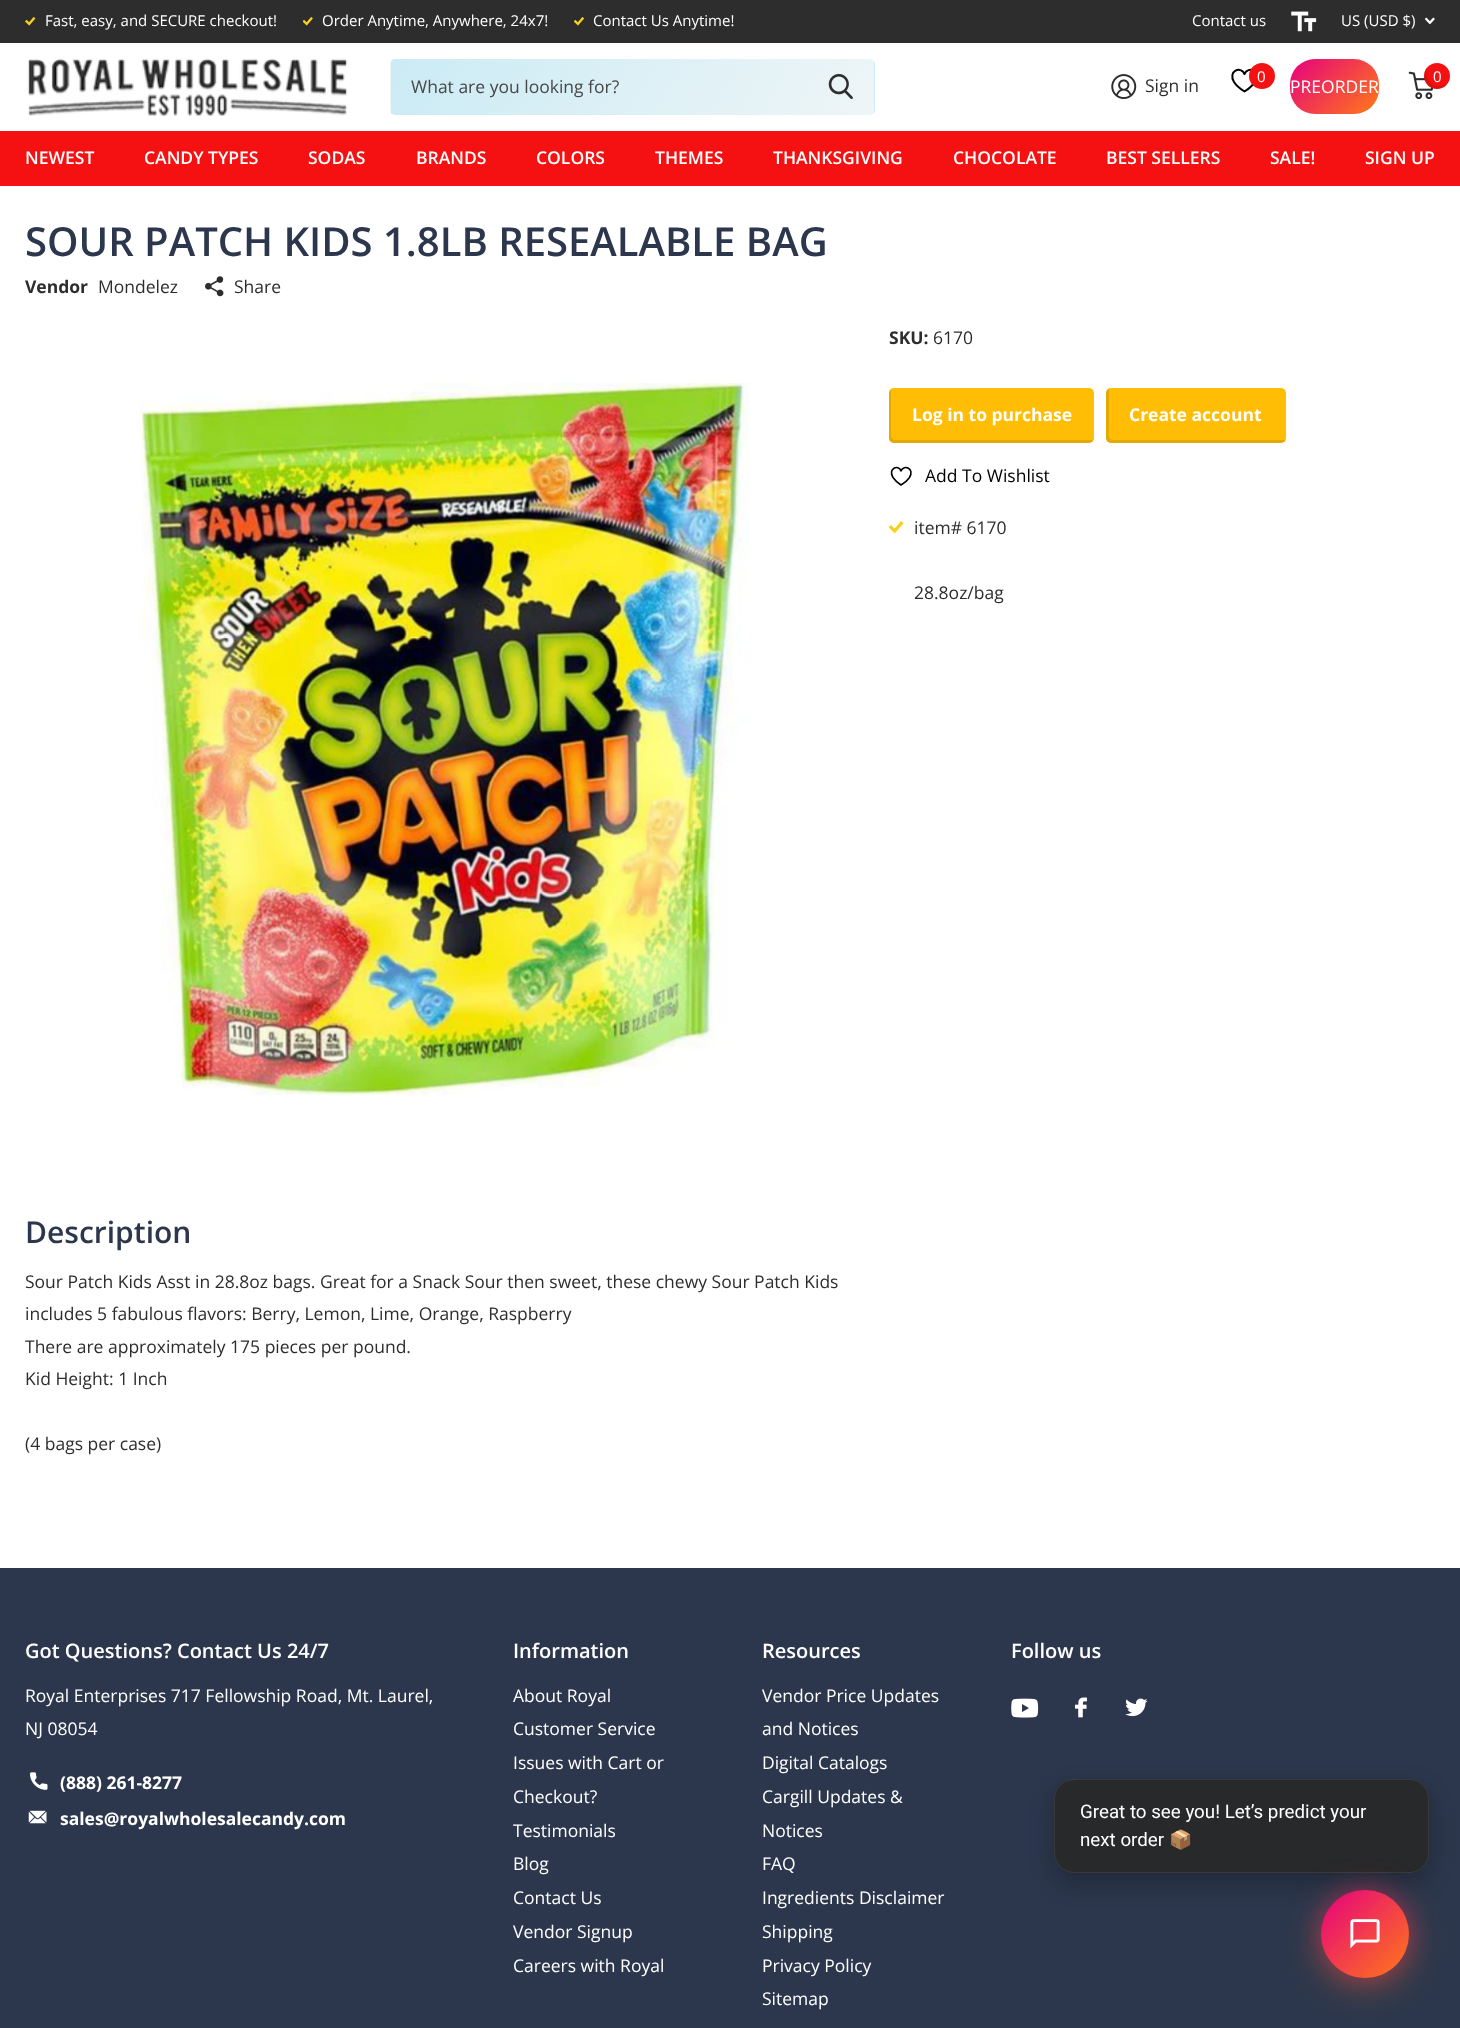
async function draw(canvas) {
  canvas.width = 1460
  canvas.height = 2028
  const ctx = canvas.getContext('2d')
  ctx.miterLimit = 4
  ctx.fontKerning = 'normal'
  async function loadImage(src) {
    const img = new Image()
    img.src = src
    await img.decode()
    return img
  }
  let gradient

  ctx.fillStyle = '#fff'
  ctx.fillRect(0, 0, 1460, 2028)
  ctx.fillStyle = '#2d2d2d'
  ctx.fillRect(0, 0, 1460, 43)
  ctx.drawImage(await loadImage('image0.png'), 25, 17, 11, 9)
  ctx.font = '15px Open Sans'
  ctx.fillStyle = '#fff'
  ctx.fillText('Fast, easy, and SECURE checkout!', 45, 26)
  ctx.drawImage(await loadImage('image1.png'), 303, 17, 10, 9)
  ctx.fillText('Order Anytime, Anywhere, 24x7!', 322, 26)
  ctx.drawImage(await loadImage('image2.png'), 574, 17, 11, 9)
  ctx.fillText('Contact Us Anytime!', 593, 26)
  ctx.fillText('Contact us', 1192, 26)
  ctx.drawImage(await loadImage('image3.png'), 1291, 11, 26, 21)
  ctx.fillText('US (USD $)', 1341, 26)
  ctx.drawImage(await loadImage('image4.png'), 1425, 17, 10, 8)
  ctx.drawImage(await loadImage('image5.png'), 27, 58, 321, 58)
  ctx.save()
  ctx.beginPath()
  ctx.roundRect(390, 59, 485, 56, 5)
  ctx.clip()
  gradient = ctx.createLinearGradient(440, -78, 825, 144)
  gradient.addColorStop(0, '#cbebf5')
  gradient.addColorStop(1, '#eef5f7')
  ctx.fillStyle = gradient
  ctx.fillRect(391, 59, 483, 1)
  gradient = ctx.createLinearGradient(-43, -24, 343, 198)
  gradient.addColorStop(0, '#cbebf5')
  gradient.addColorStop(1, '#eef5f7')
  ctx.fillStyle = gradient
  ctx.fillRect(390, 60, 1, 54)
  gradient = ctx.createLinearGradient(440, -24, 825, 198)
  gradient.addColorStop(0, '#cbebf5')
  gradient.addColorStop(1, '#eef5f7')
  ctx.fillStyle = gradient
  ctx.fillRect(391, 60, 483, 54)
  gradient = ctx.createLinearGradient(922, -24, 1308, 198)
  gradient.addColorStop(0, '#cbebf5')
  gradient.addColorStop(1, '#eef5f7')
  ctx.fillStyle = gradient
  ctx.fillRect(874, 60, 1, 54)
  gradient = ctx.createLinearGradient(440, 29, 825, 252)
  gradient.addColorStop(0, '#cbebf5')
  gradient.addColorStop(1, '#eef5f7')
  ctx.fillStyle = gradient
  ctx.fillRect(391, 114, 483, 1)
  ctx.restore()
  ctx.font = '17.5px Open Sans'
  ctx.fillStyle = '#474747'
  ctx.fillText('What are you looking for?', 411, 93)
  ctx.drawImage(await loadImage('image6.png'), 828, 73, 25, 26)
  ctx.beginPath()
  ctx.moveTo(1244.5, 91.5)
  ctx.bezierCurveTo(1240.5, 89, 1236.5, 86, 1234, 82)
  ctx.bezierCurveTo(1227.5, 71, 1241, 65.5, 1244.5, 74)
  ctx.bezierCurveTo(1248, 65.5, 1261.5, 71, 1254.5, 82)
  ctx.bezierCurveTo(1252.5, 86, 1248.5, 89, 1244.5, 91.5)
  ctx.closePath()
  ctx.strokeStyle = '#000'
  ctx.lineWidth = 2
  ctx.lineCap = 'round'
  ctx.lineJoin = 'round'
  ctx.stroke()
  ctx.fillStyle = '#f51111'
  ctx.beginPath()
  ctx.arc(1262, 76, 13, 0, 2 * Math.PI)
  ctx.fill()
  ctx.font = '15px Open Sans'
  ctx.fillStyle = '#fff'
  ctx.fillText('0', 1257, 82)
  ctx.drawImage(await loadImage('image7.png'), 1408, 71, 26, 29)
  ctx.fillStyle = '#f51111'
  ctx.beginPath()
  ctx.arc(1437, 76, 13, 0, 2 * Math.PI)
  ctx.fill()
  ctx.fillStyle = '#0000001a'
  ctx.beginPath()
  ctx.moveTo(1448, 83)
  ctx.bezierCurveTo(1437.5, 91.5, 1421.5, 81, 1427.5, 67)
  ctx.bezierCurveTo(1422, 73, 1423, 82.5, 1429.5, 87)
  ctx.bezierCurveTo(1435.5, 91, 1444, 89, 1448, 83)
  ctx.closePath()
  ctx.fill()
  ctx.fillStyle = '#fff'
  ctx.fillText('0', 1433, 82)
  ctx.drawImage(await loadImage('image8.png'), 1111, 74, 26, 26)
  ctx.font = '17.5px Open Sans'
  ctx.fillStyle = '#2d2d2d'
  ctx.fillText('Sign in', 1145, 92)
  gradient = ctx.createLinearGradient(1298, 50, 1370, 122)
  gradient.addColorStop(0, '#e6007e')
  gradient.addColorStop(1, '#ff7a18')
  ctx.fillStyle = gradient
  ctx.beginPath()
  ctx.roundRect(1290, 59, 89, 55, 25)
  ctx.fill()
  ctx.fillStyle = '#fff'
  ctx.fillText('PREORDER', 1290, 93)
  ctx.fillStyle = '#f51111'
  ctx.fillRect(0, 131, 1460, 55)
  ctx.font = '600 17.5px Open Sans'
  ctx.fillStyle = '#fff'
  ctx.fillText('NEWEST', 25, 164)
  ctx.fillText('CANDY TYPES', 144, 164)
  ctx.fillText('SODAS', 308, 164)
  ctx.fillText('BRANDS', 416, 164)
  ctx.fillText('COLORS', 536, 164)
  ctx.fillText('THEMES', 655, 164)
  ctx.fillText('THANKSGIVING', 773, 164)
  ctx.fillText('CHOCOLATE', 953, 164)
  ctx.fillText('BEST SELLERS', 1106, 164)
  ctx.fillText('SALE!', 1270, 164)
  ctx.fillText('SIGN UP', 1365, 164)
  ctx.font = '600 40px Open Sans'
  ctx.fillStyle = '#2c374d'
  ctx.fillText('SOUR PATCH KIDS 1.8LB RESEALABLE BAG', 25, 256)
  ctx.font = 'bold 17.5px Open Sans'
  ctx.fillStyle = '#2d2d2d'
  ctx.fillText('Vendor', 25, 293)
  ctx.font = '17.5px Open Sans'
  ctx.fillText('Mondelez', 98, 293)
  ctx.drawImage(await loadImage('image9.png'), 205, 276, 19, 21)
  ctx.fillText('Share', 234, 293)
  ctx.font = 'bold 17.5px Open Sans'
  ctx.fillText('SKU:', 889, 344)
  ctx.font = '17.5px Open Sans'
  ctx.fillText('6170', 933, 344)
  ctx.fillStyle = '#ffbd06'
  ctx.beginPath()
  ctx.roundRect(889, 388, 205, 55, 5)
  ctx.fill()
  ctx.fillStyle = '#0000001a'
  ctx.beginPath()
  ctx.moveTo(891, 389)
  ctx.bezierCurveTo(890, 390, 889, 391, 889, 393)
  ctx.lineTo(889, 438)
  ctx.bezierCurveTo(889, 441, 891, 443, 894, 443)
  ctx.lineTo(1089, 443)
  ctx.bezierCurveTo(1091, 443, 1093, 441, 1094, 439)
  ctx.lineTo(1091, 440)
  ctx.lineTo(896, 440)
  ctx.bezierCurveTo(893, 440, 891, 438, 891, 435)
  ctx.closePath()
  ctx.fill()
  ctx.font = 'bold 17.5px Open Sans'
  ctx.fillStyle = '#fff'
  ctx.fillText('Log in to purchase', 912, 421)
  ctx.fillStyle = '#ffbd06'
  ctx.beginPath()
  ctx.roundRect(1106, 388, 180, 55, 5)
  ctx.fill()
  ctx.fillStyle = '#0000001a'
  ctx.beginPath()
  ctx.moveTo(1109, 388)
  ctx.bezierCurveTo(1107, 389, 1106, 391, 1106, 393)
  ctx.lineTo(1106, 438)
  ctx.bezierCurveTo(1106, 441, 1108, 443, 1111, 443)
  ctx.lineTo(1281, 443)
  ctx.bezierCurveTo(1283, 443, 1285, 442, 1286, 440)
  ctx.lineTo(1114, 440)
  ctx.bezierCurveTo(1107, 440, 1109, 432, 1109, 428)
  ctx.closePath()
  ctx.fill()
  ctx.fillStyle = '#fff'
  ctx.fillText('Create account', 1129, 421)
  ctx.beginPath()
  ctx.moveTo(901, 485)
  ctx.bezierCurveTo(898, 483, 895, 480.5, 893, 477.5)
  ctx.bezierCurveTo(887.5, 468.5, 898.5, 464, 901, 471)
  ctx.bezierCurveTo(904, 464, 915, 468.5, 909.5, 477.5)
  ctx.bezierCurveTo(907.5, 480.5, 904.5, 483, 901, 485)
  ctx.closePath()
  ctx.lineWidth = 1.6
  ctx.stroke()
  ctx.font = '17.5px Open Sans'
  ctx.fillStyle = '#000'
  ctx.fillText('Add To Wishlist', 925, 482)
  ctx.drawImage(await loadImage('image10.png'), 888, 521, 16, 13)
  ctx.fillStyle = '#2d2d2d'
  ctx.fillText('item# 6170', 914, 534)
  ctx.fillText('28.8oz/bag', 914, 599)
  ctx.drawImage(await loadImage('image11.png'), 139, 383, 611, 713)
  ctx.font = '600 30px Open Sans'
  ctx.fillStyle = '#2c374d'
  ctx.fillText('Description', 25, 1243)
  ctx.font = '17.5px Open Sans'
  ctx.fillStyle = '#2d2d2d'
  ctx.fillText('Sour Patch Kids Asst in 28.8oz bags. Great for a Snack Sour then sweet, these chewy Sour Patch Kids', 25, 1288)
  ctx.fillText('includes 5 fabulous flavors: Berry, Lemon, Lime, Orange, Raspberry', 25, 1320)
  ctx.fillText('There are approximately 175 pieces per pound.', 25, 1353)
  ctx.fillText('Kid Height: 1 Inch', 25, 1385)
  ctx.fillText('(4 bags per case)', 25, 1450)
  ctx.fillStyle = '#2c374d'
  ctx.fillRect(0, 1568, 1460, 460)
  ctx.font = '600 20px Open Sans'
  ctx.fillStyle = '#fff'
  ctx.fillText('Got Questions? Contact Us 24/7', 25, 1658)
  ctx.font = '17.5px Open Sans'
  ctx.fillText('Royal Enterprises 717 Fellowship Road, Mt. Laurel,', 25, 1702)
  ctx.fillText('NJ 08054', 25, 1735)
  ctx.drawImage(await loadImage('image12.png'), 30, 1772, 18, 18)
  ctx.font = 'bold 17.5px Open Sans'
  ctx.fillText('(888) 261-8277', 60, 1789)
  ctx.drawImage(await loadImage('image13.png'), 28, 1810, 19, 14)
  ctx.fillText('sales@royalwholesalecandy.com', 60, 1825)
  ctx.font = '600 20px Open Sans'
  ctx.fillText('Information', 513, 1658)
  ctx.font = '17.5px Open Sans'
  ctx.fillText('About Royal', 513, 1702)
  ctx.fillText('Customer Service', 513, 1735)
  ctx.fillText('Issues with Cart or', 513, 1769)
  ctx.fillText('Checkout?', 513, 1803)
  ctx.fillText('Testimonials', 513, 1837)
  ctx.fillText('Blog', 513, 1870)
  ctx.fillText('Contact Us', 513, 1904)
  ctx.fillText('Vendor Signup', 513, 1938)
  ctx.fillText('Careers with Royal', 513, 1972)
  ctx.font = '600 20px Open Sans'
  ctx.fillText('Resources', 762, 1658)
  ctx.font = '17.5px Open Sans'
  ctx.fillText('Vendor Price Updates', 762, 1702)
  ctx.fillText('and Notices', 762, 1735)
  ctx.fillText('Digital Catalogs', 762, 1769)
  ctx.fillText('Cargill Updates &', 762, 1803)
  ctx.fillText('Notices', 762, 1837)
  ctx.fillText('FAQ', 762, 1870)
  ctx.fillText('Ingredients Disclaimer', 762, 1904)
  ctx.fillText('Shipping', 762, 1938)
  ctx.fillText('Privacy Policy', 762, 1972)
  ctx.fillText('Sitemap', 762, 2005)
  ctx.font = '600 20px Open Sans'
  ctx.fillText('Follow us', 1011, 1658)
  ctx.drawImage(await loadImage('image14.png'), 1011, 1698, 28, 20)
  ctx.drawImage(await loadImage('image15.png'), 1075, 1697, 12, 21)
  ctx.drawImage(await loadImage('image16.png'), 1125, 1698, 23, 19)
  ctx.save()
  ctx.beginPath()
  ctx.moveTo(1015, 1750)
  ctx.lineTo(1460, 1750)
  ctx.lineTo(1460, 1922)
  ctx.lineTo(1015, 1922)
  ctx.closePath()
  ctx.moveTo(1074, 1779)
  ctx.lineTo(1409, 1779)
  ctx.bezierCurveTo(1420, 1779, 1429, 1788, 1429, 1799)
  ctx.lineTo(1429, 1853)
  ctx.bezierCurveTo(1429, 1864, 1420, 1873, 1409, 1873)
  ctx.lineTo(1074, 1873)
  ctx.bezierCurveTo(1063, 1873, 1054, 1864, 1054, 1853)
  ctx.lineTo(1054, 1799)
  ctx.bezierCurveTo(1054, 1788, 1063, 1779, 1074, 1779)
  ctx.closePath()
  ctx.clip('evenodd')
  ctx.fillStyle = '#00000040'
  ctx.filter = 'blur(12.5px)'
  ctx.beginPath()
  ctx.roundRect(1054, 1789, 375, 94, 20)
  ctx.fill()
  ctx.filter = 'none'
  ctx.restore()
  ctx.fillStyle = '#282828eb'
  ctx.beginPath()
  ctx.roundRect(1054, 1779, 375, 94, 20)
  ctx.fill()
  ctx.beginPath()
  ctx.roundRect(1054.5, 1779.5, 374, 93, 19.5)
  ctx.strokeStyle = '#ffffff14'
  ctx.lineWidth = 1
  ctx.lineJoin = 'miter'
  ctx.stroke()
  ctx.font = '18.75px Roboto'
  ctx.fillStyle = '#fff'
  ctx.fillText('Great to see you! Let’s predict your', 1080, 1818)
  ctx.fillText('next order', 1080, 1846)
  ctx.font = '18.75px Noto Color Emoji'
  ctx.fillText('📦', 1169, 1846)
  ctx.fillStyle = '#e6007e66'
  ctx.filter = 'blur(12.5px)'
  ctx.beginPath()
  ctx.roundRect(1321, 1890, 88, 88, 44)
  ctx.fill()
  ctx.filter = 'none'
  ctx.fillStyle = '#ff7a1866'
  ctx.filter = 'blur(19px)'
  ctx.beginPath()
  ctx.roundRect(1321, 1898, 88, 87, 43.5)
  ctx.fill()
  ctx.filter = 'none'
  gradient = ctx.createLinearGradient(1321, 1890, 1409, 1978)
  gradient.addColorStop(0, '#e6007e')
  gradient.addColorStop(1, '#ff7a18')
  ctx.fillStyle = gradient
  ctx.beginPath()
  ctx.arc(1365, 1934, 44, 0, 2 * Math.PI)
  ctx.fill()
  ctx.drawImage(await loadImage('image17.png'), 1350, 1919, 30, 30)
}

draw(document.querySelector('canvas'))
